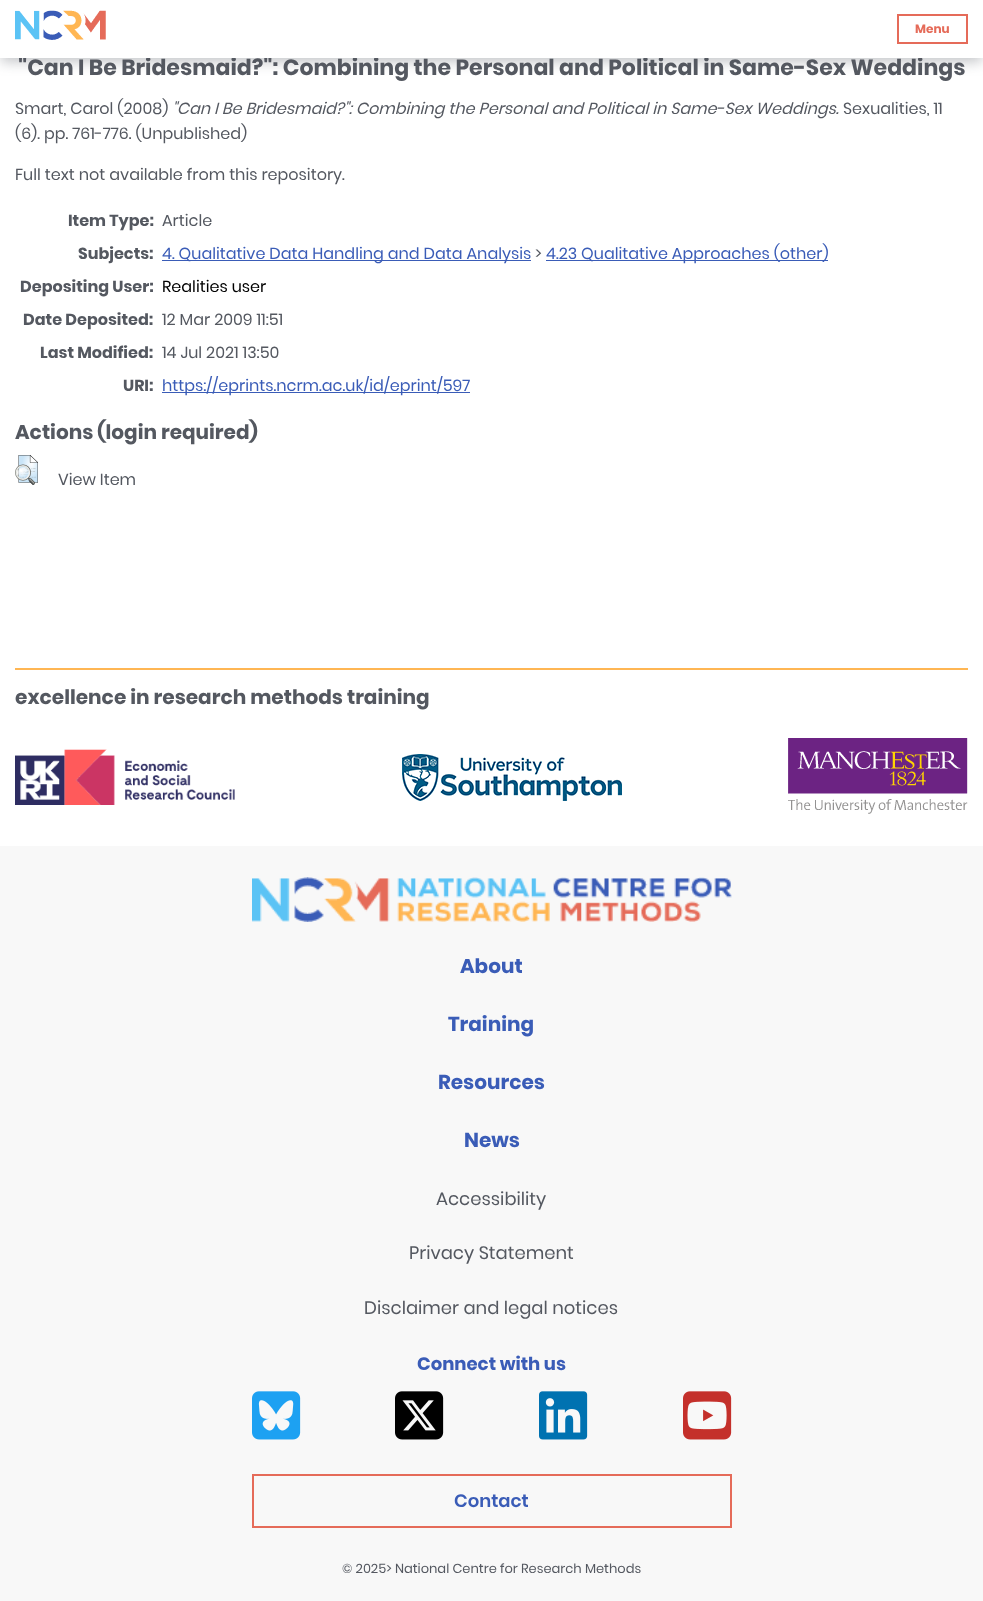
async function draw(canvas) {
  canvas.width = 983
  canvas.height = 1601
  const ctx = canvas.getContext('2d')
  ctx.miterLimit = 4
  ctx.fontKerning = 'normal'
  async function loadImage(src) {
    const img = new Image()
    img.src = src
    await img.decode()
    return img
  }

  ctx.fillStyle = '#fff'
  ctx.fillRect(0, 0, 983, 1601)
  ctx.fillStyle = '#54586059'
  ctx.filter = 'blur(6.5px)'
  ctx.beginPath()
  ctx.rect(1, 6, 981, 56)
  ctx.fill()
  ctx.filter = 'none'
  ctx.font = 'bold 22px Poppins'
  ctx.fillStyle = '#545860'
  ctx.fillText('"Can I Be Bridesmaid?": Combining the Personal and Political in Same-Sex Weddings', 18, 75)
  ctx.fillStyle = '#fff'
  ctx.fillRect(0, 0, 983, 58)
  ctx.drawImage(await loadImage('image0.png'), 15, 10, 91, 30)
  ctx.strokeStyle = '#e56b59'
  ctx.lineWidth = 2
  ctx.strokeRect(898, 15, 69, 28)
  ctx.font = 'bold 12px Poppins'
  ctx.fillStyle = '#e56b59'
  ctx.fillText('Menu', 915, 33)
  ctx.font = '16px Poppins'
  ctx.fillStyle = '#545860'
  ctx.fillText('Smart, Carol (2008)', 15, 114)
  ctx.font = 'italic 16px Poppins'
  ctx.fillText('"Can I Be Bridesmaid?": Combining the Personal and Political in Same-Sex Weddings.', 172, 114)
  ctx.font = '16px Poppins'
  ctx.fillText('Sexualities, 11', 843, 114)
  ctx.fillText('(6). pp. 761-776. (Unpublished)', 15, 139)
  ctx.fillText('Full text not available from this repository.', 15, 180)
  ctx.font = 'bold 16px Poppins'
  ctx.fillText('Item Type:', 68, 226)
  ctx.font = '16px Poppins'
  ctx.fillText('Article', 162, 226)
  ctx.font = 'bold 16px Poppins'
  ctx.fillText('Subjects:', 78, 259)
  ctx.fillStyle = '#3a5cb7'
  ctx.fillRect(162, 260, 369, 1)
  ctx.font = '16px Poppins'
  ctx.fillText('4. Qualitative Data Handling and Data Analysis', 162, 259)
  ctx.fillStyle = '#545860'
  ctx.fillText('>', 535, 259)
  ctx.fillStyle = '#3a5cb7'
  ctx.fillRect(546, 260, 282, 1)
  ctx.fillText('4.23 Qualitative Approaches (other)', 546, 259)
  ctx.font = 'bold 16px Poppins'
  ctx.fillStyle = '#545860'
  ctx.fillText('Depositing User:', 20, 292)
  ctx.font = '16px Poppins'
  ctx.fillStyle = '#000'
  ctx.fillText('Realities user', 162, 292)
  ctx.font = 'bold 16px Poppins'
  ctx.fillStyle = '#545860'
  ctx.fillText('Date Deposited:', 23, 325)
  ctx.font = '16px Poppins'
  ctx.fillText('12 Mar 2009 11:51', 162, 325)
  ctx.font = 'bold 16px Poppins'
  ctx.fillText('Last Modified:', 40, 358)
  ctx.font = '16px Poppins'
  ctx.fillText('14 Jul 2021 13:50', 162, 358)
  ctx.font = 'bold 16px Poppins'
  ctx.fillText('URI:', 123, 391)
  ctx.fillStyle = '#3a5cb7'
  ctx.fillRect(162, 392, 308, 1)
  ctx.font = '16px Poppins'
  ctx.fillText('https://eprints.ncrm.ac.uk/id/eprint/597', 162, 391)
  ctx.font = 'bold 20px Poppins'
  ctx.fillStyle = '#545860'
  ctx.fillText('Actions (login required)', 15, 439)
  ctx.drawImage(await loadImage('image1.png'), 15, 455, 23, 30)
  ctx.font = '16px Poppins'
  ctx.fillText('View Item', 58, 485)
  ctx.fillStyle = '#ffb653'
  ctx.fillRect(15, 668, 953, 2)
  ctx.font = 'bold 20px Poppins'
  ctx.fillStyle = '#545860'
  ctx.fillText('excellence in research methods training', 15, 704)
  ctx.drawImage(await loadImage('image2.png'), 15, 749, 220, 56)
  ctx.drawImage(await loadImage('image3.png'), 402, 754, 220, 47)
  ctx.drawImage(await loadImage('image4.png'), 788, 738, 180, 76)
  ctx.fillStyle = '#f8f8f8'
  ctx.fillRect(0, 846, 983, 755)
  ctx.drawImage(await loadImage('image5.png'), 252, 877, 480, 45)
  ctx.fillStyle = '#3a5cb7'
  ctx.fillText('About', 460, 973)
  ctx.fillText('Training', 448, 1031)
  ctx.fillText('Resources', 438, 1089)
  ctx.fillText('News', 464, 1147)
  ctx.font = '18px Poppins'
  ctx.fillStyle = '#545860'
  ctx.fillText('Accessibility', 436, 1205)
  ctx.fillText('Privacy Statement', 409, 1259)
  ctx.fillText('Disclaimer and legal notices', 364, 1314)
  ctx.font = 'bold 18px Poppins'
  ctx.fillStyle = '#3a5cb7'
  ctx.fillText('Connect with us', 417, 1370)
  ctx.drawImage(await loadImage('image6.png'), 252, 1391, 49, 49)
  ctx.drawImage(await loadImage('image7.png'), 395, 1391, 49, 49)
  ctx.drawImage(await loadImage('image8.png'), 539, 1391, 49, 49)
  ctx.drawImage(await loadImage('image9.png'), 683, 1391, 49, 49)
  ctx.strokeRect(253, 1475, 478, 52)
  ctx.font = '600 18px Poppins'
  ctx.fillText('Contact', 454, 1507)
  ctx.font = '13px Poppins'
  ctx.fillStyle = '#545860'
  ctx.fillText('© 2025> National Centre for Research Methods', 342, 1573)
}

draw(document.querySelector('canvas'))
